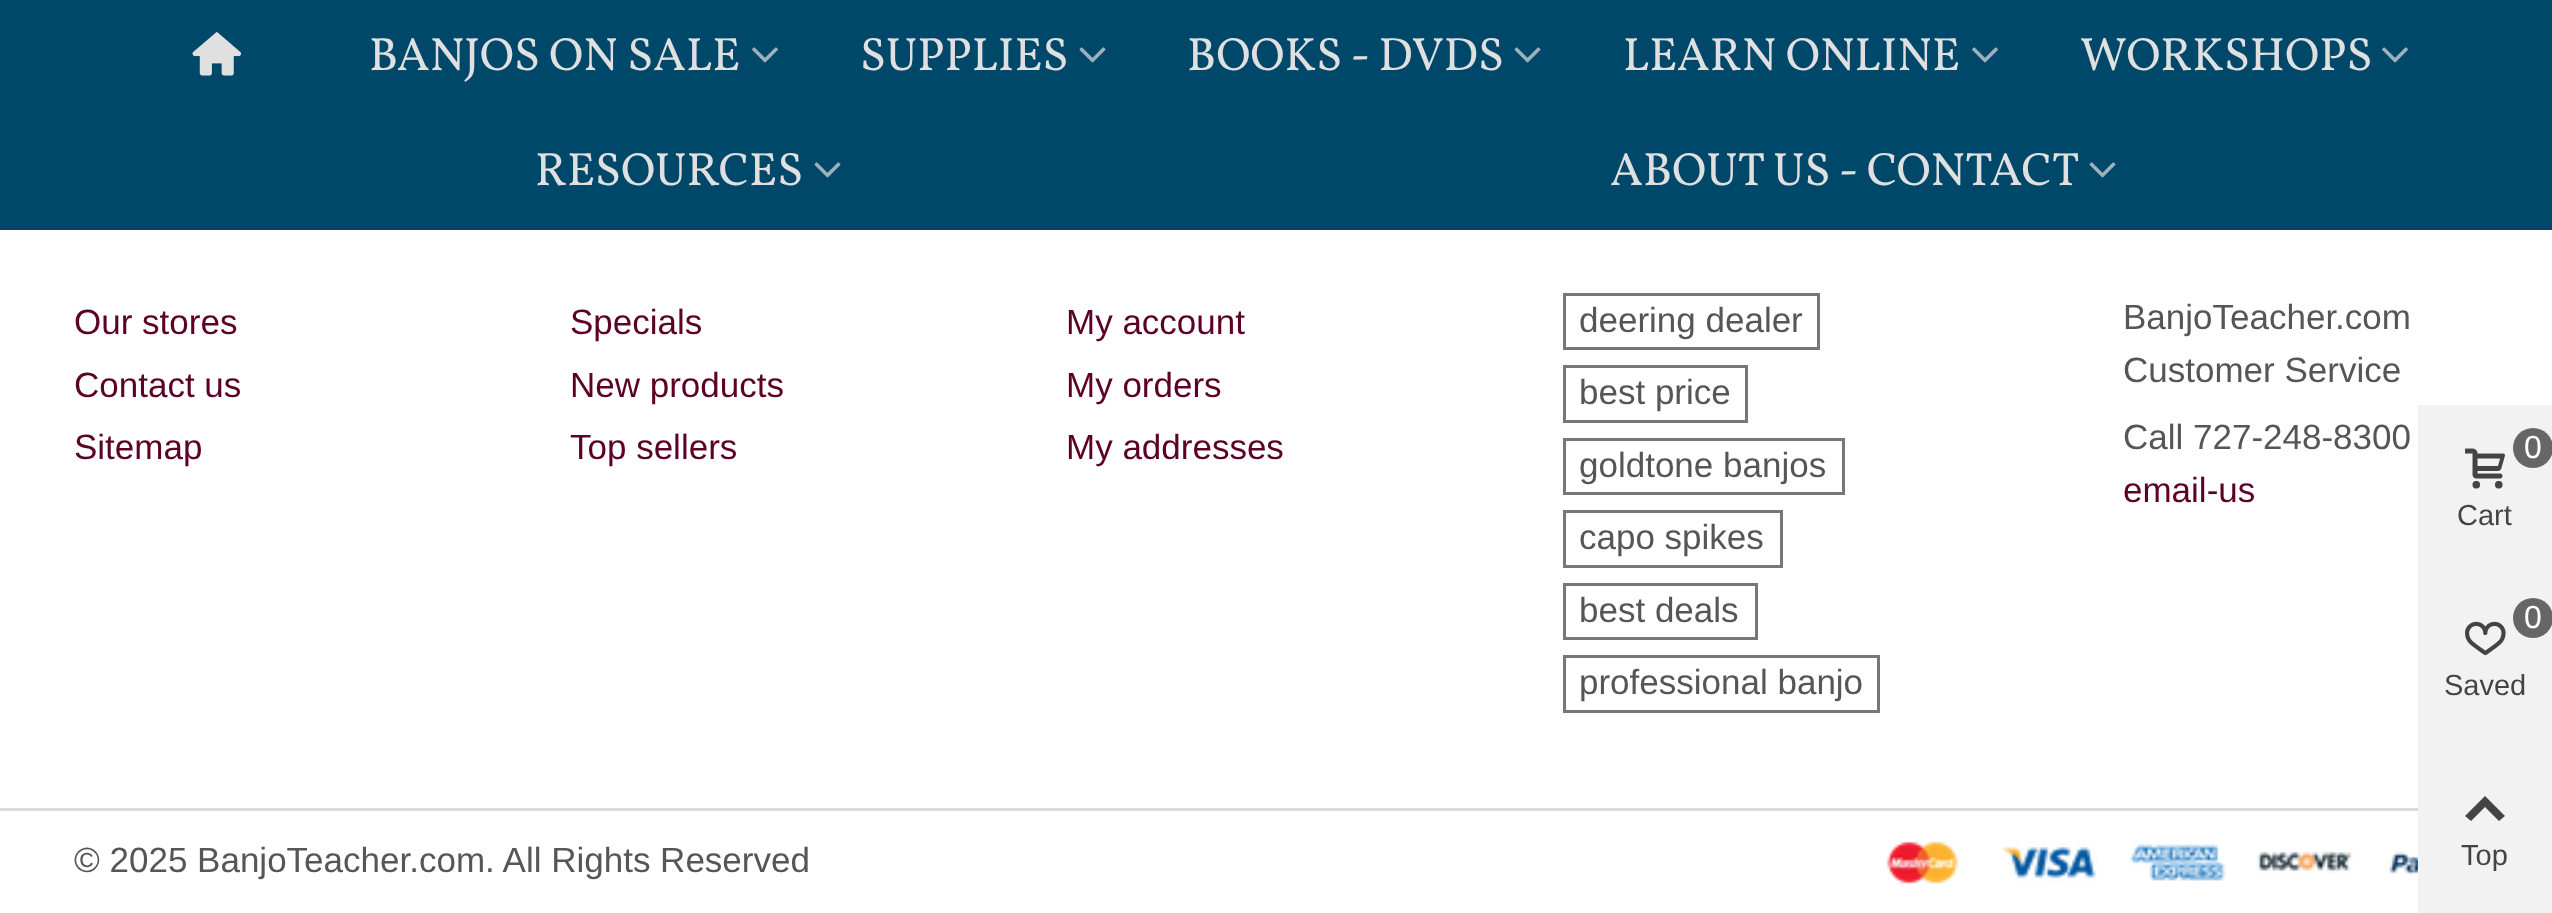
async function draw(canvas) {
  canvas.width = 2552
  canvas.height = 913
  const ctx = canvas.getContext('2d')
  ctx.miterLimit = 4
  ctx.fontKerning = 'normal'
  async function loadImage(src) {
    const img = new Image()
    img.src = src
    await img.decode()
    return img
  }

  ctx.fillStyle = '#fff'
  ctx.fillRect(0, 0, 2552, 913)
  ctx.fillStyle = '#00486a'
  ctx.fillRect(0, 0, 2552, 230)
  ctx.drawImage(await loadImage('image0.png'), 192, 31, 49, 45)
  ctx.font = '46.75px Vollkorn'
  ctx.fillStyle = '#e0e0e0'
  ctx.fillText('BANJOS ON SALE', 369, 70)
  ctx.drawImage(await loadImage('image1.png'), 752, 47, 26, 16)
  ctx.fillText('SUPPLIES', 860, 70)
  ctx.drawImage(await loadImage('image2.png'), 1079, 47, 27, 16)
  ctx.fillText('BOOKS - DVDS', 1187, 70)
  ctx.drawImage(await loadImage('image2.png'), 1514, 47, 27, 16)
  ctx.fillText('LEARN ONLINE', 1623, 70)
  ctx.drawImage(await loadImage('image1.png'), 1972, 47, 26, 16)
  ctx.fillText('WORKSHOPS', 2080, 70)
  ctx.drawImage(await loadImage('image1.png'), 2382, 47, 26, 16)
  ctx.fillText('RESOURCES', 535, 185)
  ctx.drawImage(await loadImage('image2.png'), 814, 162, 27, 16)
  ctx.fillText('ABOUT US - CONTACT', 1610, 185)
  ctx.drawImage(await loadImage('image2.png'), 2089, 162, 27, 16)
  ctx.font = '35px Liberation Sans'
  ctx.fillStyle = '#5d0025'
  ctx.fillText('Our stores', 74, 334)
  ctx.fillText('Contact us', 74, 397)
  ctx.fillText('Sitemap', 74, 459)
  ctx.fillText('Specials', 570, 334)
  ctx.fillText('New products', 570, 397)
  ctx.fillText('Top sellers', 570, 459)
  ctx.fillText('My account', 1066, 334)
  ctx.fillText('My orders', 1066, 397)
  ctx.fillText('My addresses', 1066, 459)
  ctx.strokeStyle = '#777'
  ctx.lineWidth = 3
  ctx.strokeRect(1564.5, 294.5, 254, 54)
  ctx.fillStyle = '#565656'
  ctx.fillText('deering dealer', 1579, 332)
  ctx.strokeRect(1564.5, 366.5, 182, 55)
  ctx.fillText('best price', 1579, 404)
  ctx.strokeRect(1564.5, 439.5, 279, 54)
  ctx.fillText('goldtone banjos', 1579, 477)
  ctx.strokeRect(1564.5, 511.5, 217, 55)
  ctx.fillText('capo spikes', 1579, 549)
  ctx.strokeRect(1564.5, 584.5, 192, 54)
  ctx.fillText('best deals', 1579, 622)
  ctx.strokeRect(1564.5, 656.5, 314, 55)
  ctx.fillText('professional banjo', 1579, 694)
  ctx.fillText('BanjoTeacher.com', 2123, 329)
  ctx.fillText('Customer Service', 2123, 382)
  ctx.fillText('Call 727-248-8300', 2123, 449)
  ctx.fillStyle = '#5d0025'
  ctx.fillText('email-us', 2123, 502)
  ctx.fillStyle = '#dadada'
  ctx.fillRect(0, 808, 2418, 3)
  ctx.fillStyle = '#565656'
  ctx.fillText('© 2025 BanjoTeacher.com. All Rights Reserved', 74, 872)
  ctx.drawImage(await loadImage('image3.png'), 1886, 841, 532, 44)
  ctx.fillStyle = '#f2f2f2'
  ctx.fillRect(2418, 405, 134, 508)
  ctx.drawImage(await loadImage('image4.png'), 2465, 448, 40, 41)
  ctx.fillStyle = '#666'
  ctx.beginPath()
  ctx.arc(2533, 448, 20, 0, 2 * Math.PI)
  ctx.fill()
  ctx.font = '32px Liberation Sans'
  ctx.fillStyle = '#fff'
  ctx.fillText('0', 2524, 458)
  ctx.font = '29px Liberation Sans'
  ctx.fillStyle = '#444'
  ctx.fillText('Cart', 2457, 525)
  ctx.fillStyle = '#666'
  ctx.beginPath()
  ctx.arc(2533, 618, 20, 0, 2 * Math.PI)
  ctx.fill()
  ctx.font = '32px Liberation Sans'
  ctx.fillStyle = '#fff'
  ctx.fillText('0', 2524, 628)
  ctx.drawImage(await loadImage('image5.png'), 2465, 621, 41, 35)
  ctx.font = '29px Liberation Sans'
  ctx.fillStyle = '#444'
  ctx.fillText('Saved', 2444, 695)
  ctx.beginPath()
  ctx.moveTo(2465, 816)
  ctx.lineTo(2485, 796)
  ctx.lineTo(2505, 816)
  ctx.lineTo(2499, 821)
  ctx.lineTo(2485, 807)
  ctx.lineTo(2471, 821)
  ctx.closePath()
  ctx.fill()
  ctx.fillText('Top', 2461, 865)
}

draw(document.querySelector('canvas'))
